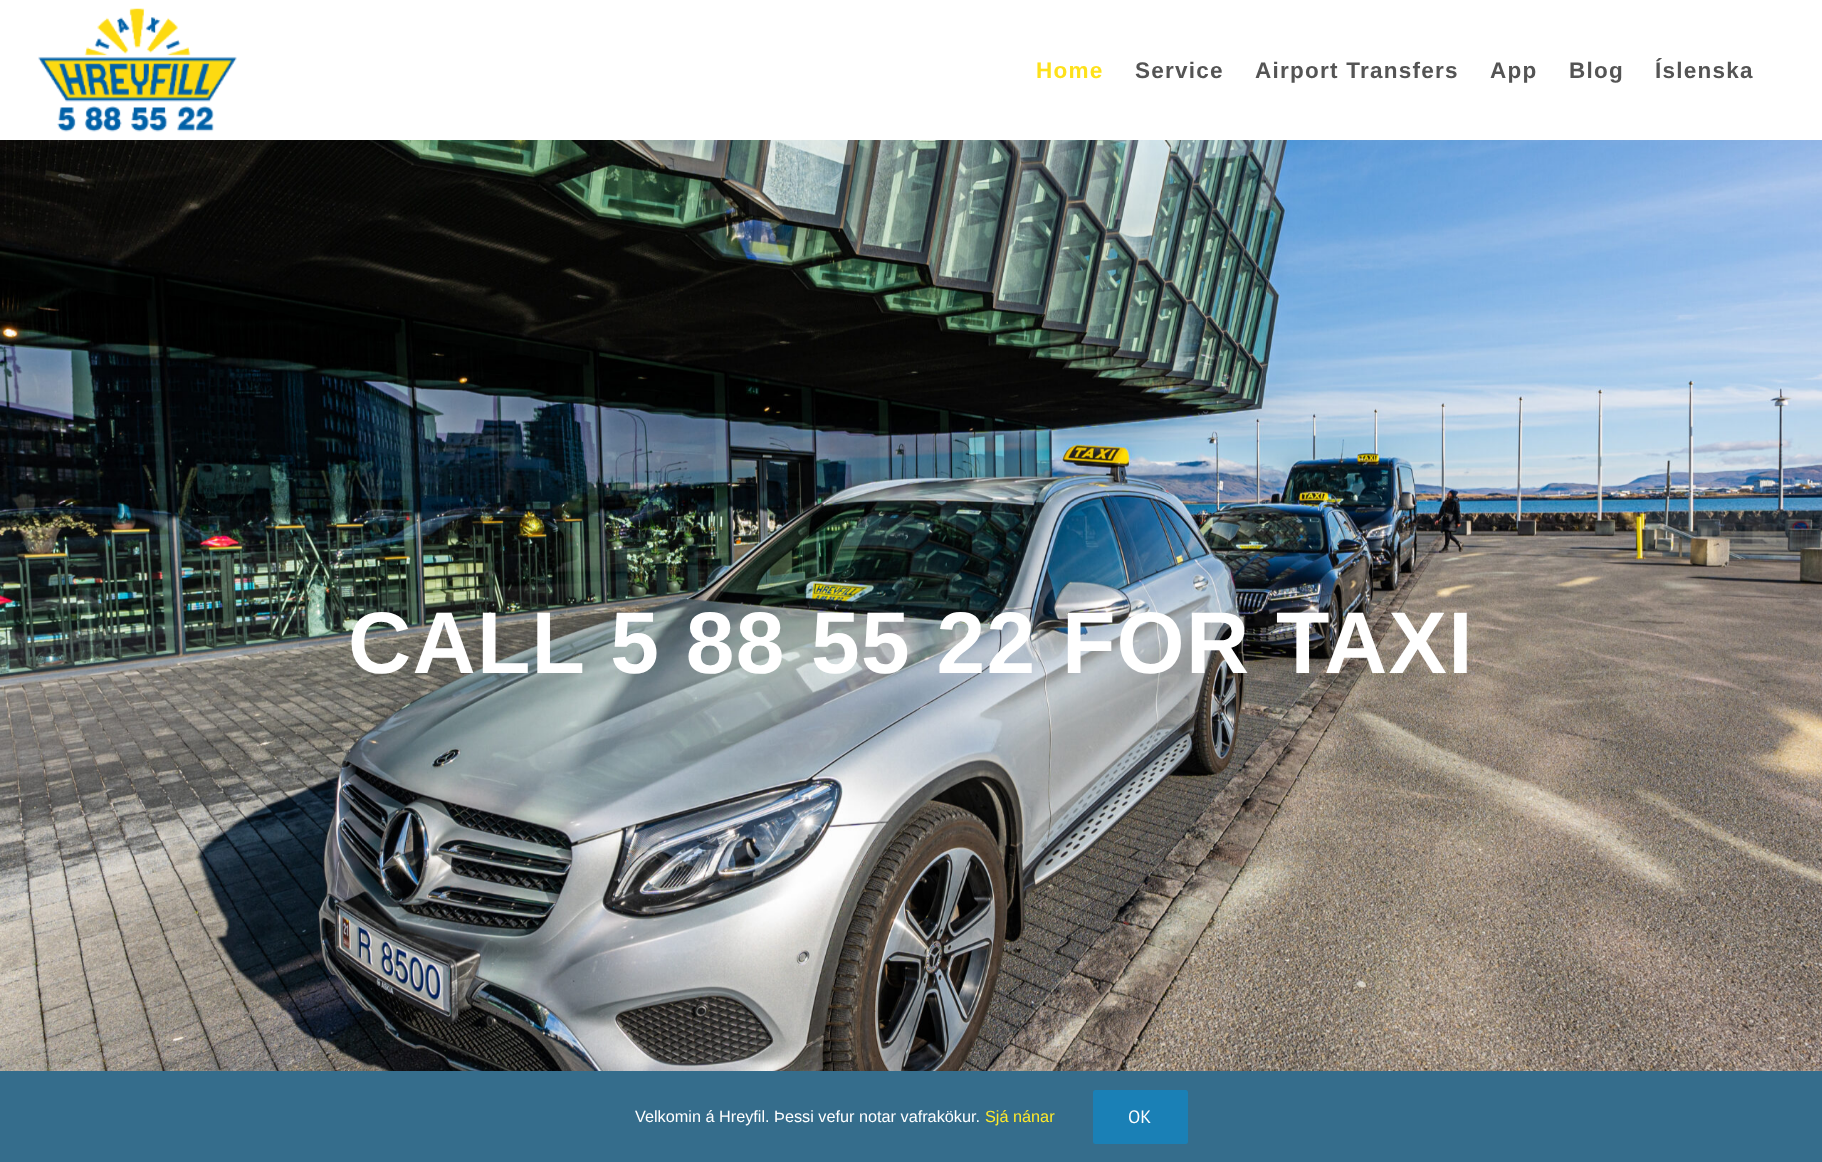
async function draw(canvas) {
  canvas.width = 1822
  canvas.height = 1162
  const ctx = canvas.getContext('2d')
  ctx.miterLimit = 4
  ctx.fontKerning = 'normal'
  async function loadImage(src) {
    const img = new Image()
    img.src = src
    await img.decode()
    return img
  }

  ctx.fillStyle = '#fff'
  ctx.fillRect(0, 0, 1822, 1162)
  ctx.drawImage(await loadImage('image0.png'), 38, 8, 199, 124)
  ctx.letterSpacing = '1.25px'
  ctx.font = 'bold 22.5px Liberation Sans'
  ctx.fillStyle = '#fee11b'
  ctx.fillText('Home', 1036, 78)
  ctx.fillStyle = '#545454'
  ctx.fillText('Service', 1135, 78)
  ctx.fillText('Airport Transfers', 1255, 78)
  ctx.fillText('App', 1490, 78)
  ctx.fillText('Blog', 1569, 78)
  ctx.fillText('Íslenska', 1655, 78)
  ctx.drawImage(await loadImage('image1.png'), 0, 140, 1822, 931)
  ctx.font = 'bold 87.5px Liberation Sans'
  ctx.fillStyle = '#fff'
  ctx.fillText('CALL 5 88 55 22 FOR TAXI', 348, 673)
  ctx.fillStyle = '#356d8c'
  ctx.fillRect(0, 1071, 1822, 91)
  ctx.letterSpacing = '0px'
  ctx.font = '16.25px Liberation Sans'
  ctx.fillStyle = '#fff'
  ctx.fillText('Velkomin á Hreyfil. Þessi vefur notar vafrakökur.', 635, 1122)
  ctx.fillStyle = '#ffe92b'
  ctx.fillText('Sjá nánar', 985, 1122)
  ctx.fillStyle = '#1a80b6'
  ctx.beginPath()
  ctx.roundRect(1093, 1090, 95, 54, 2.5)
  ctx.fill()
  ctx.font = '18px PT Sans'
  ctx.fillStyle = '#fff'
  ctx.fillText('OK', 1128, 1123)
}

draw(document.querySelector('canvas'))
